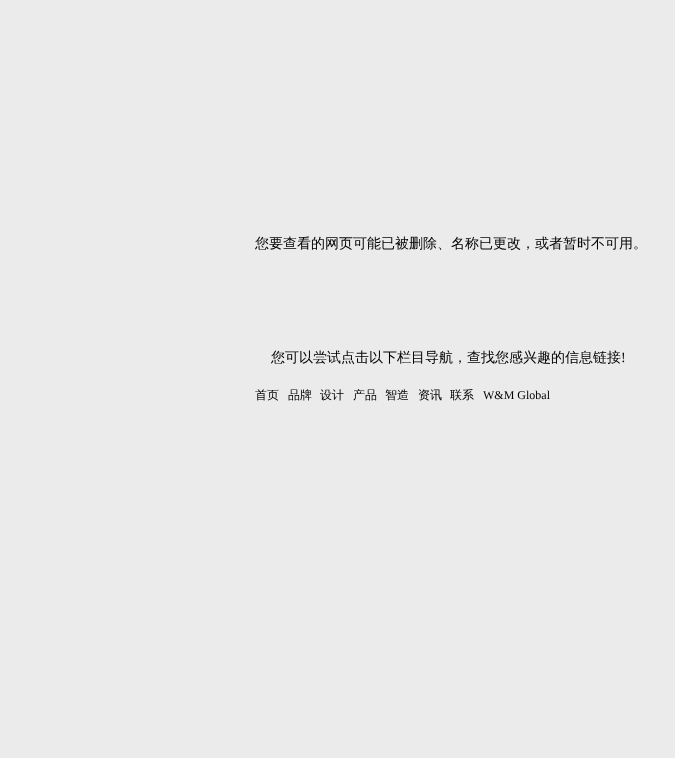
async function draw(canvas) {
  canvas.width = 675
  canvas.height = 758
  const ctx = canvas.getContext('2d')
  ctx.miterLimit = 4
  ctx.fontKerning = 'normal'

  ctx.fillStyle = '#ebebeb'
  ctx.fillRect(0, 0, 675, 758)
  ctx.font = '500 14px WenQuanYi Zen Hei'
  ctx.fillStyle = '#000'
  ctx.fillText('您要查看的网页可能已被删除、名称已更改，或者暂时不可用。', 255, 248)
  ctx.fillText('您可以尝试点击以下栏目导航，查找您感兴趣的信息链接', 271, 362)
  ctx.font = '14px Liberation Serif'
  ctx.fillText('!', 621, 362)
  ctx.font = '500 12px WenQuanYi Zen Hei'
  ctx.fillText('首页', 255, 399)
  ctx.fillText('品牌', 288, 399)
  ctx.fillText('设计', 320, 399)
  ctx.fillText('产品', 353, 399)
  ctx.fillText('智造', 385, 399)
  ctx.fillText('资讯', 418, 399)
  ctx.fillText('联系', 450, 399)
  ctx.font = '12px Liberation Serif'
  ctx.fillText('W&M Global', 483, 399)
}

draw(document.querySelector('canvas'))
